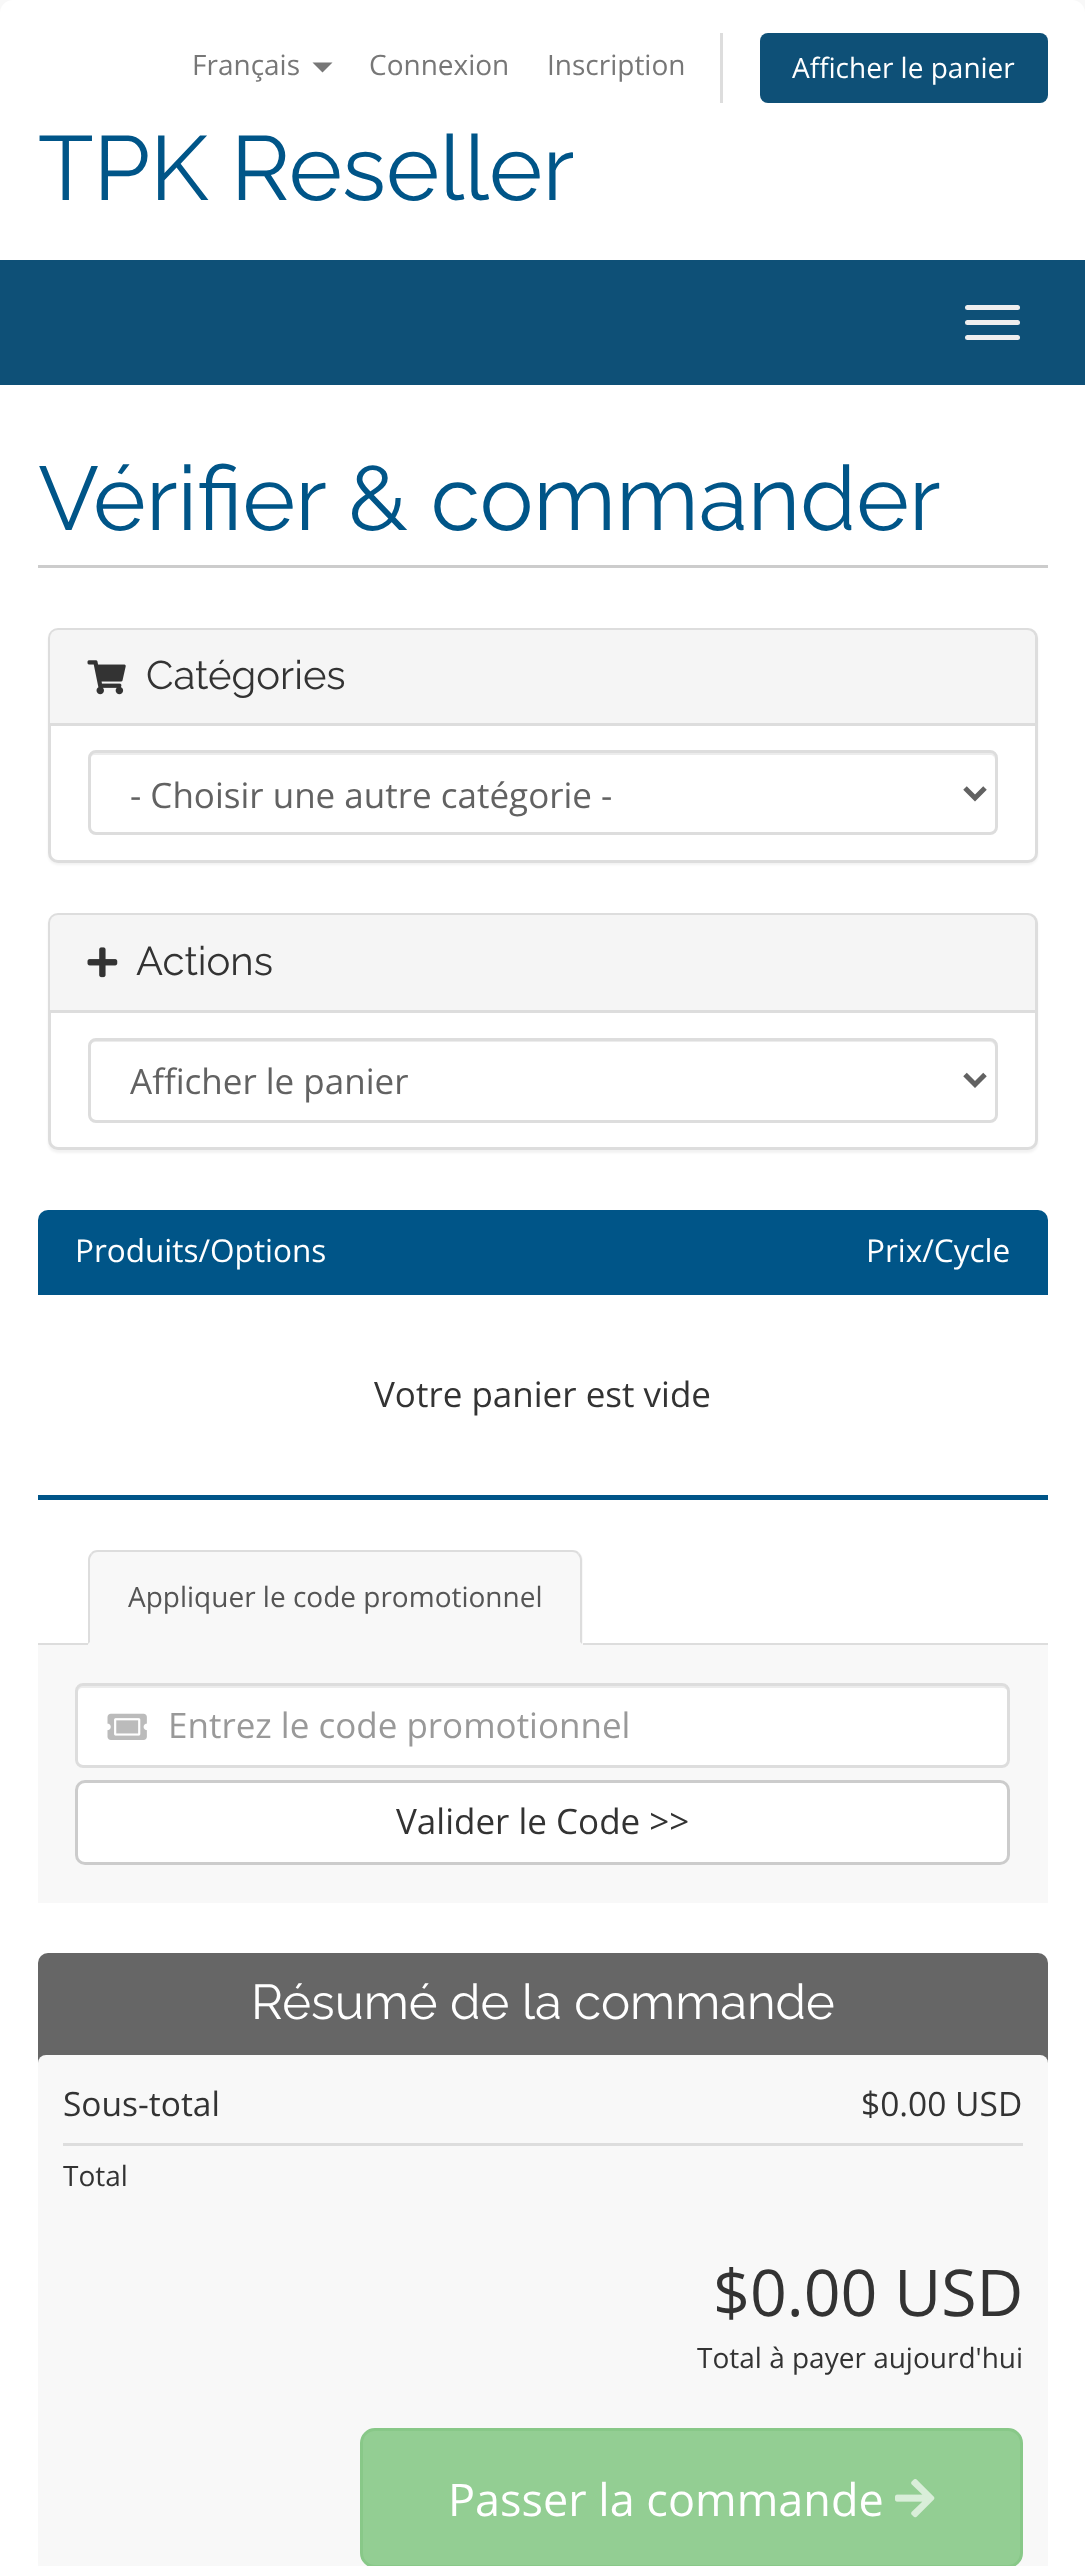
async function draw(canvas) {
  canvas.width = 1085
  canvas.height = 2566
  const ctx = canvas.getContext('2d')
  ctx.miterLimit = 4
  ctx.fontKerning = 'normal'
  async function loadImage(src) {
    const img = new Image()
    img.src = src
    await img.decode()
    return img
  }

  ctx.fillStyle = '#f8f8f8'
  ctx.fillRect(0, 0, 1085, 2566)
  ctx.fillStyle = '#fff'
  ctx.beginPath()
  ctx.roundRect(0, 0, 1085, 260, [13, 13, 0, 0])
  ctx.fill()
  ctx.font = '28px Open Sans'
  ctx.fillStyle = '#777'
  ctx.fillText('Français', 192, 75)
  ctx.beginPath()
  ctx.moveTo(312.5, 62.5)
  ctx.lineTo(332.5, 62.5)
  ctx.lineTo(322.5, 72.5)
  ctx.closePath()
  ctx.fill()
  ctx.fillText('Connexion', 369, 75)
  ctx.fillText('Inscription', 547, 75)
  ctx.fillStyle = '#ddd'
  ctx.fillRect(720, 33, 3, 70)
  ctx.fillStyle = '#0e5077'
  ctx.beginPath()
  ctx.roundRect(760, 33, 288, 70, 8)
  ctx.fill()
  ctx.fillStyle = '#fff'
  ctx.fillText('Afficher le panier', 792, 78)
  ctx.font = '91px Raleway'
  ctx.fillStyle = '#058'
  ctx.fillText('TPK Reseller', 38, 200)
  ctx.fillStyle = '#0e5077'
  ctx.fillRect(0, 260, 1085, 125)
  ctx.fillStyle = '#eee'
  ctx.beginPath()
  ctx.roundRect(965, 305, 55, 5, 2.5)
  ctx.fill()
  ctx.beginPath()
  ctx.roundRect(965, 320, 55, 5, 2.5)
  ctx.fill()
  ctx.beginPath()
  ctx.roundRect(965, 335, 55, 5, 2.5)
  ctx.fill()
  ctx.fillStyle = '#fff'
  ctx.fillRect(0, 385, 1085, 2181)
  ctx.fillStyle = '#ccc'
  ctx.fillRect(38, 565, 1010, 3)
  ctx.font = '90px Raleway'
  ctx.fillStyle = '#058'
  ctx.fillText('Vérifier & commander', 38, 530)
  ctx.fillStyle = '#0000000d'
  ctx.filter = 'blur(1px)'
  ctx.beginPath()
  ctx.roundRect(48, 630, 990, 235, 10)
  ctx.fill()
  ctx.filter = 'none'
  ctx.fillStyle = '#fff'
  ctx.beginPath()
  ctx.roundRect(49.5, 629.5, 987, 232, 8.5)
  ctx.fill()
  ctx.strokeStyle = '#ddd'
  ctx.lineWidth = 3
  ctx.stroke()
  ctx.fillStyle = '#f5f5f5'
  ctx.beginPath()
  ctx.roundRect(50, 630, 985, 95, [8, 8, 0, 0])
  ctx.fill()
  ctx.fillStyle = '#ddd'
  ctx.fillRect(50, 723, 985, 3)
  ctx.drawImage(await loadImage('image0.png'), 87, 660, 39, 35)
  ctx.font = '40px Raleway'
  ctx.fillStyle = '#333'
  ctx.fillText('Catégories', 146, 689)
  ctx.fillStyle = '#ececec'
  ctx.beginPath()
  ctx.moveTo(95, 755)
  ctx.lineTo(990, 755)
  ctx.bezierCurveTo(993, 755, 995, 757, 995, 760)
  ctx.lineTo(995, 758)
  ctx.bezierCurveTo(995, 755, 993, 753, 990, 753)
  ctx.lineTo(95, 753)
  ctx.bezierCurveTo(92, 753, 90, 755, 90, 758)
  ctx.lineTo(90, 760)
  ctx.bezierCurveTo(90, 757, 92, 755, 95, 755)
  ctx.closePath()
  ctx.fill()
  ctx.beginPath()
  ctx.roundRect(89.5, 751.5, 907, 82, 6.5)
  ctx.stroke()
  ctx.beginPath()
  ctx.moveTo(965, 788)
  ctx.lineTo(975, 798)
  ctx.lineTo(985, 788)
  ctx.strokeStyle = '#626262'
  ctx.lineWidth = 5
  ctx.stroke()
  ctx.font = '35px Open Sans'
  ctx.fillStyle = '#626262'
  ctx.fillText('- Choisir une autre catégorie -', 130, 808)
  ctx.fillStyle = '#0000000d'
  ctx.filter = 'blur(1px)'
  ctx.beginPath()
  ctx.roundRect(48, 915, 990, 238, 10)
  ctx.fill()
  ctx.filter = 'none'
  ctx.fillStyle = '#fff'
  ctx.beginPath()
  ctx.roundRect(49.5, 914.5, 987, 234, 8.5)
  ctx.fill()
  ctx.strokeStyle = '#ddd'
  ctx.lineWidth = 3
  ctx.stroke()
  ctx.fillStyle = '#f5f5f5'
  ctx.beginPath()
  ctx.roundRect(50, 915, 985, 98, [8, 8, 0, 0])
  ctx.fill()
  ctx.fillStyle = '#ddd'
  ctx.fillRect(50, 1010, 985, 3)
  ctx.drawImage(await loadImage('image1.png'), 87, 947, 31, 31)
  ctx.font = '40px Raleway'
  ctx.fillStyle = '#333'
  ctx.fillText('Actions', 136, 975)
  ctx.fillStyle = '#ececec'
  ctx.beginPath()
  ctx.moveTo(95, 1042)
  ctx.lineTo(990, 1042)
  ctx.bezierCurveTo(993, 1042, 995, 1045, 995, 1048)
  ctx.lineTo(995, 1045)
  ctx.bezierCurveTo(995, 1042, 993, 1040, 990, 1040)
  ctx.lineTo(95, 1040)
  ctx.bezierCurveTo(92, 1040, 90, 1042, 90, 1045)
  ctx.lineTo(90, 1048)
  ctx.bezierCurveTo(90, 1045, 92, 1042, 95, 1042)
  ctx.closePath()
  ctx.fill()
  ctx.beginPath()
  ctx.roundRect(89.5, 1039.5, 907, 82, 6.5)
  ctx.stroke()
  ctx.beginPath()
  ctx.moveTo(965, 1074.5)
  ctx.lineTo(975, 1084.5)
  ctx.lineTo(985, 1074.5)
  ctx.strokeStyle = '#626262'
  ctx.lineWidth = 5
  ctx.stroke()
  ctx.font = '35px Open Sans'
  ctx.fillStyle = '#626262'
  ctx.fillText('Afficher le panier', 130, 1094)
  ctx.fillStyle = '#058'
  ctx.beginPath()
  ctx.roundRect(38, 1210, 1010, 85, [10, 10, 0, 0])
  ctx.fill()
  ctx.font = '31.5px Open Sans'
  ctx.fillStyle = '#fff'
  ctx.fillText('Produits/Options', 75, 1262)
  ctx.fillText('Prix/Cycle', 866, 1262)
  ctx.fillStyle = '#058'
  ctx.fillRect(38, 1495, 1010, 5)
  ctx.font = '35px Open Sans'
  ctx.fillStyle = '#333'
  ctx.fillText('Votre panier est vide', 374, 1407)
  ctx.fillStyle = '#ddd'
  ctx.fillRect(38, 1643, 1010, 2)
  ctx.fillStyle = '#f8f8f8'
  ctx.beginPath()
  ctx.roundRect(88, 1550, 495, 95, [10, 10, 0, 0])
  ctx.fill()
  ctx.fillStyle = '#ddd'
  ctx.beginPath()
  ctx.moveTo(98, 1550)
  ctx.bezierCurveTo(95, 1550, 92, 1551, 91, 1553)
  ctx.lineTo(92, 1555)
  ctx.bezierCurveTo(93, 1553, 95, 1552, 98, 1552)
  ctx.lineTo(572, 1552)
  ctx.bezierCurveTo(575, 1552, 577, 1553, 578, 1555)
  ctx.lineTo(579, 1553)
  ctx.bezierCurveTo(578, 1551, 575, 1550, 572, 1550)
  ctx.closePath()
  ctx.fill()
  ctx.beginPath()
  ctx.moveTo(579, 1553)
  ctx.bezierCurveTo(581, 1555, 582, 1557, 582, 1560)
  ctx.lineTo(582, 1644)
  ctx.lineTo(580, 1642)
  ctx.lineTo(580, 1560)
  ctx.bezierCurveTo(580, 1558, 579, 1556, 578, 1555)
  ctx.closePath()
  ctx.fill()
  ctx.beginPath()
  ctx.moveTo(91, 1553)
  ctx.bezierCurveTo(89, 1555, 88, 1557, 88, 1560)
  ctx.lineTo(88, 1644)
  ctx.lineTo(90, 1642)
  ctx.lineTo(90, 1560)
  ctx.bezierCurveTo(90, 1558, 91, 1556, 92, 1555)
  ctx.closePath()
  ctx.fill()
  ctx.font = '28px Open Sans'
  ctx.fillStyle = '#555'
  ctx.fillText('Appliquer le code promotionnel', 128, 1607)
  ctx.fillStyle = '#f8f8f8'
  ctx.fillRect(38, 1645, 1010, 258)
  ctx.fillStyle = '#fff'
  ctx.beginPath()
  ctx.roundRect(75, 1683, 935, 85, 8)
  ctx.fill()
  ctx.fillStyle = '#ececec'
  ctx.beginPath()
  ctx.moveTo(82, 1688)
  ctx.lineTo(1002, 1688)
  ctx.bezierCurveTo(1005, 1688, 1008, 1690, 1008, 1692)
  ctx.bezierCurveTo(1008, 1689, 1007, 1685, 1003, 1685)
  ctx.lineTo(83, 1685)
  ctx.bezierCurveTo(79, 1685, 78, 1689, 78, 1692)
  ctx.bezierCurveTo(78, 1690, 80, 1688, 82, 1688)
  ctx.closePath()
  ctx.fill()
  ctx.beginPath()
  ctx.roundRect(76.5, 1684.5, 932, 82, 6.5)
  ctx.strokeStyle = '#ddd'
  ctx.lineWidth = 3
  ctx.stroke()
  ctx.drawImage(await loadImage('image2.png'), 107, 1713, 40, 27)
  ctx.font = '35px Open Sans'
  ctx.fillStyle = '#999'
  ctx.fillText('Entrez le code promotionnel', 168, 1738)
  ctx.fillStyle = '#fff'
  ctx.beginPath()
  ctx.roundRect(76.5, 1781.5, 932, 82, 8.5)
  ctx.fill()
  ctx.strokeStyle = '#ccc'
  ctx.stroke()
  ctx.fillStyle = '#333'
  ctx.fillText('Valider le Code >>', 396, 1834)
  ctx.fillStyle = '#666'
  ctx.beginPath()
  ctx.roundRect(38, 1953, 1010, 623, 10)
  ctx.fill()
  ctx.font = '49px Raleway'
  ctx.fillStyle = '#fff'
  ctx.fillText('Résumé de la commande', 251, 2019)
  ctx.fillStyle = '#f8f8f8'
  ctx.beginPath()
  ctx.roundRect(38, 2055, 1010, 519, 8)
  ctx.fill()
  ctx.fillStyle = '#ddd'
  ctx.fillRect(63, 2143, 960, 3)
  ctx.font = '33.5px Open Sans'
  ctx.fillStyle = '#333'
  ctx.fillText('Sous-total', 63, 2116)
  ctx.fillText('$0.00 USD', 861, 2116)
  ctx.font = '28px Open Sans'
  ctx.fillText('Total', 63, 2186)
  ctx.font = '64.5px Open Sans'
  ctx.fillText('$0.00 USD', 713, 2316)
  ctx.font = '28px Open Sans'
  ctx.fillText('Total à payer aujourd\'hui', 697, 2368)
  ctx.fillStyle = '#93ce93'
  ctx.beginPath()
  ctx.roundRect(361.5, 2429.5, 660, 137, 13.5)
  ctx.fill()
  ctx.strokeStyle = '#88c888'
  ctx.stroke()
  ctx.font = '45px Open Sans'
  ctx.fillStyle = '#fff'
  ctx.fillText('Passer la commande', 448, 2516)
  ctx.drawImage(await loadImage('image3.png'), 895, 2479, 40, 39)
}

draw(document.querySelector('canvas'))
